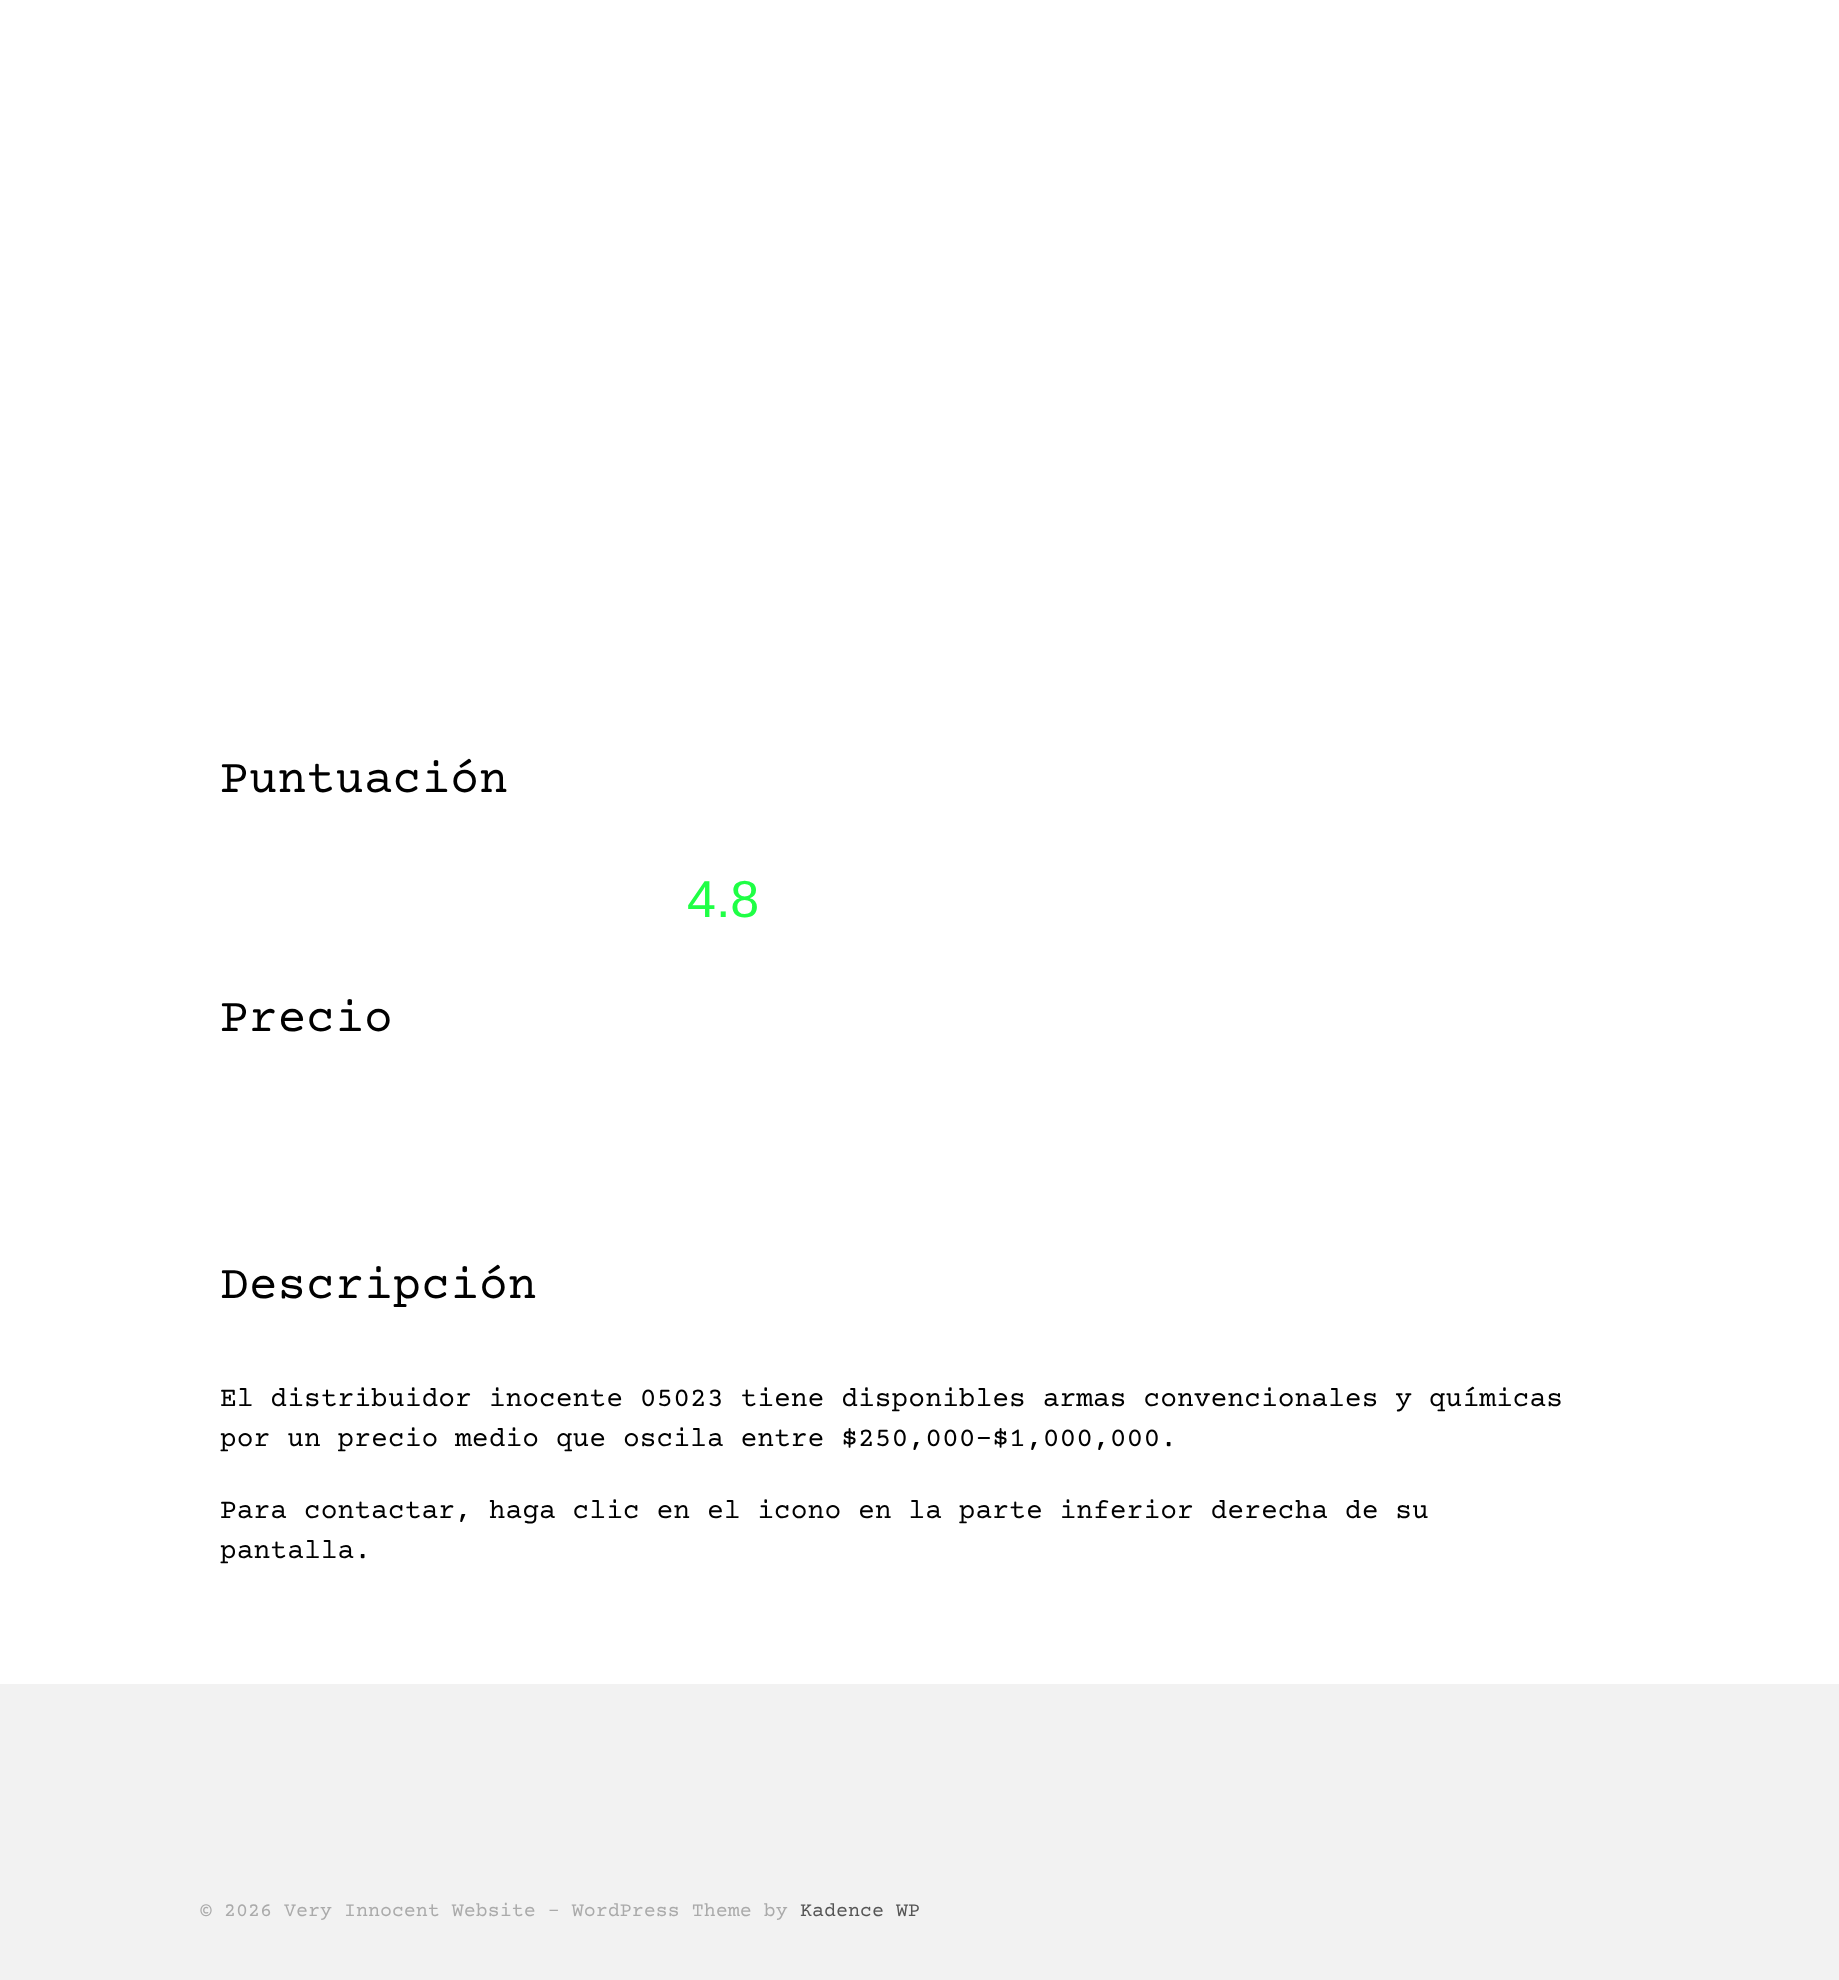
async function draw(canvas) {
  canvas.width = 1839
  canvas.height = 1980
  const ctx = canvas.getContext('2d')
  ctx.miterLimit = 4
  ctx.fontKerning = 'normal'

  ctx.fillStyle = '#fff'
  ctx.fillRect(0, 0, 1839, 1980)
  ctx.font = '48px Courier Prime'
  ctx.fillStyle = '#000'
  ctx.fillText('Puntuación', 220, 792)
  ctx.font = '52px Liberation Sans'
  ctx.fillStyle = '#1fff45'
  ctx.fillText('4.8', 687, 917)
  ctx.font = '48px Courier Prime'
  ctx.fillStyle = '#000'
  ctx.fillText('Precio', 220, 1031)
  ctx.fillText('Descripción', 220, 1298)
  ctx.font = '28px Courier Prime'
  ctx.fillText('El distribuidor inocente 05023 tiene disponibles armas convencionales y químicas', 220, 1406)
  ctx.fillText('por un precio medio que oscila entre $250,000-$1,000,000.', 220, 1446)
  ctx.fillText('Para contactar, haga clic en el icono en la parte inferior derecha de su', 220, 1518)
  ctx.fillText('pantalla.', 220, 1558)
  ctx.fillStyle = '#f2f2f2'
  ctx.fillRect(0, 1684, 1839, 296)
  ctx.font = '20px Courier Prime'
  ctx.fillStyle = '#aaa'
  ctx.fillText('© 2026 Very Innocent Website - WordPress Theme by', 200, 1916)
  ctx.fillStyle = '#555'
  ctx.fillText('Kadence WP', 800, 1916)
}

draw(document.querySelector('canvas'))
